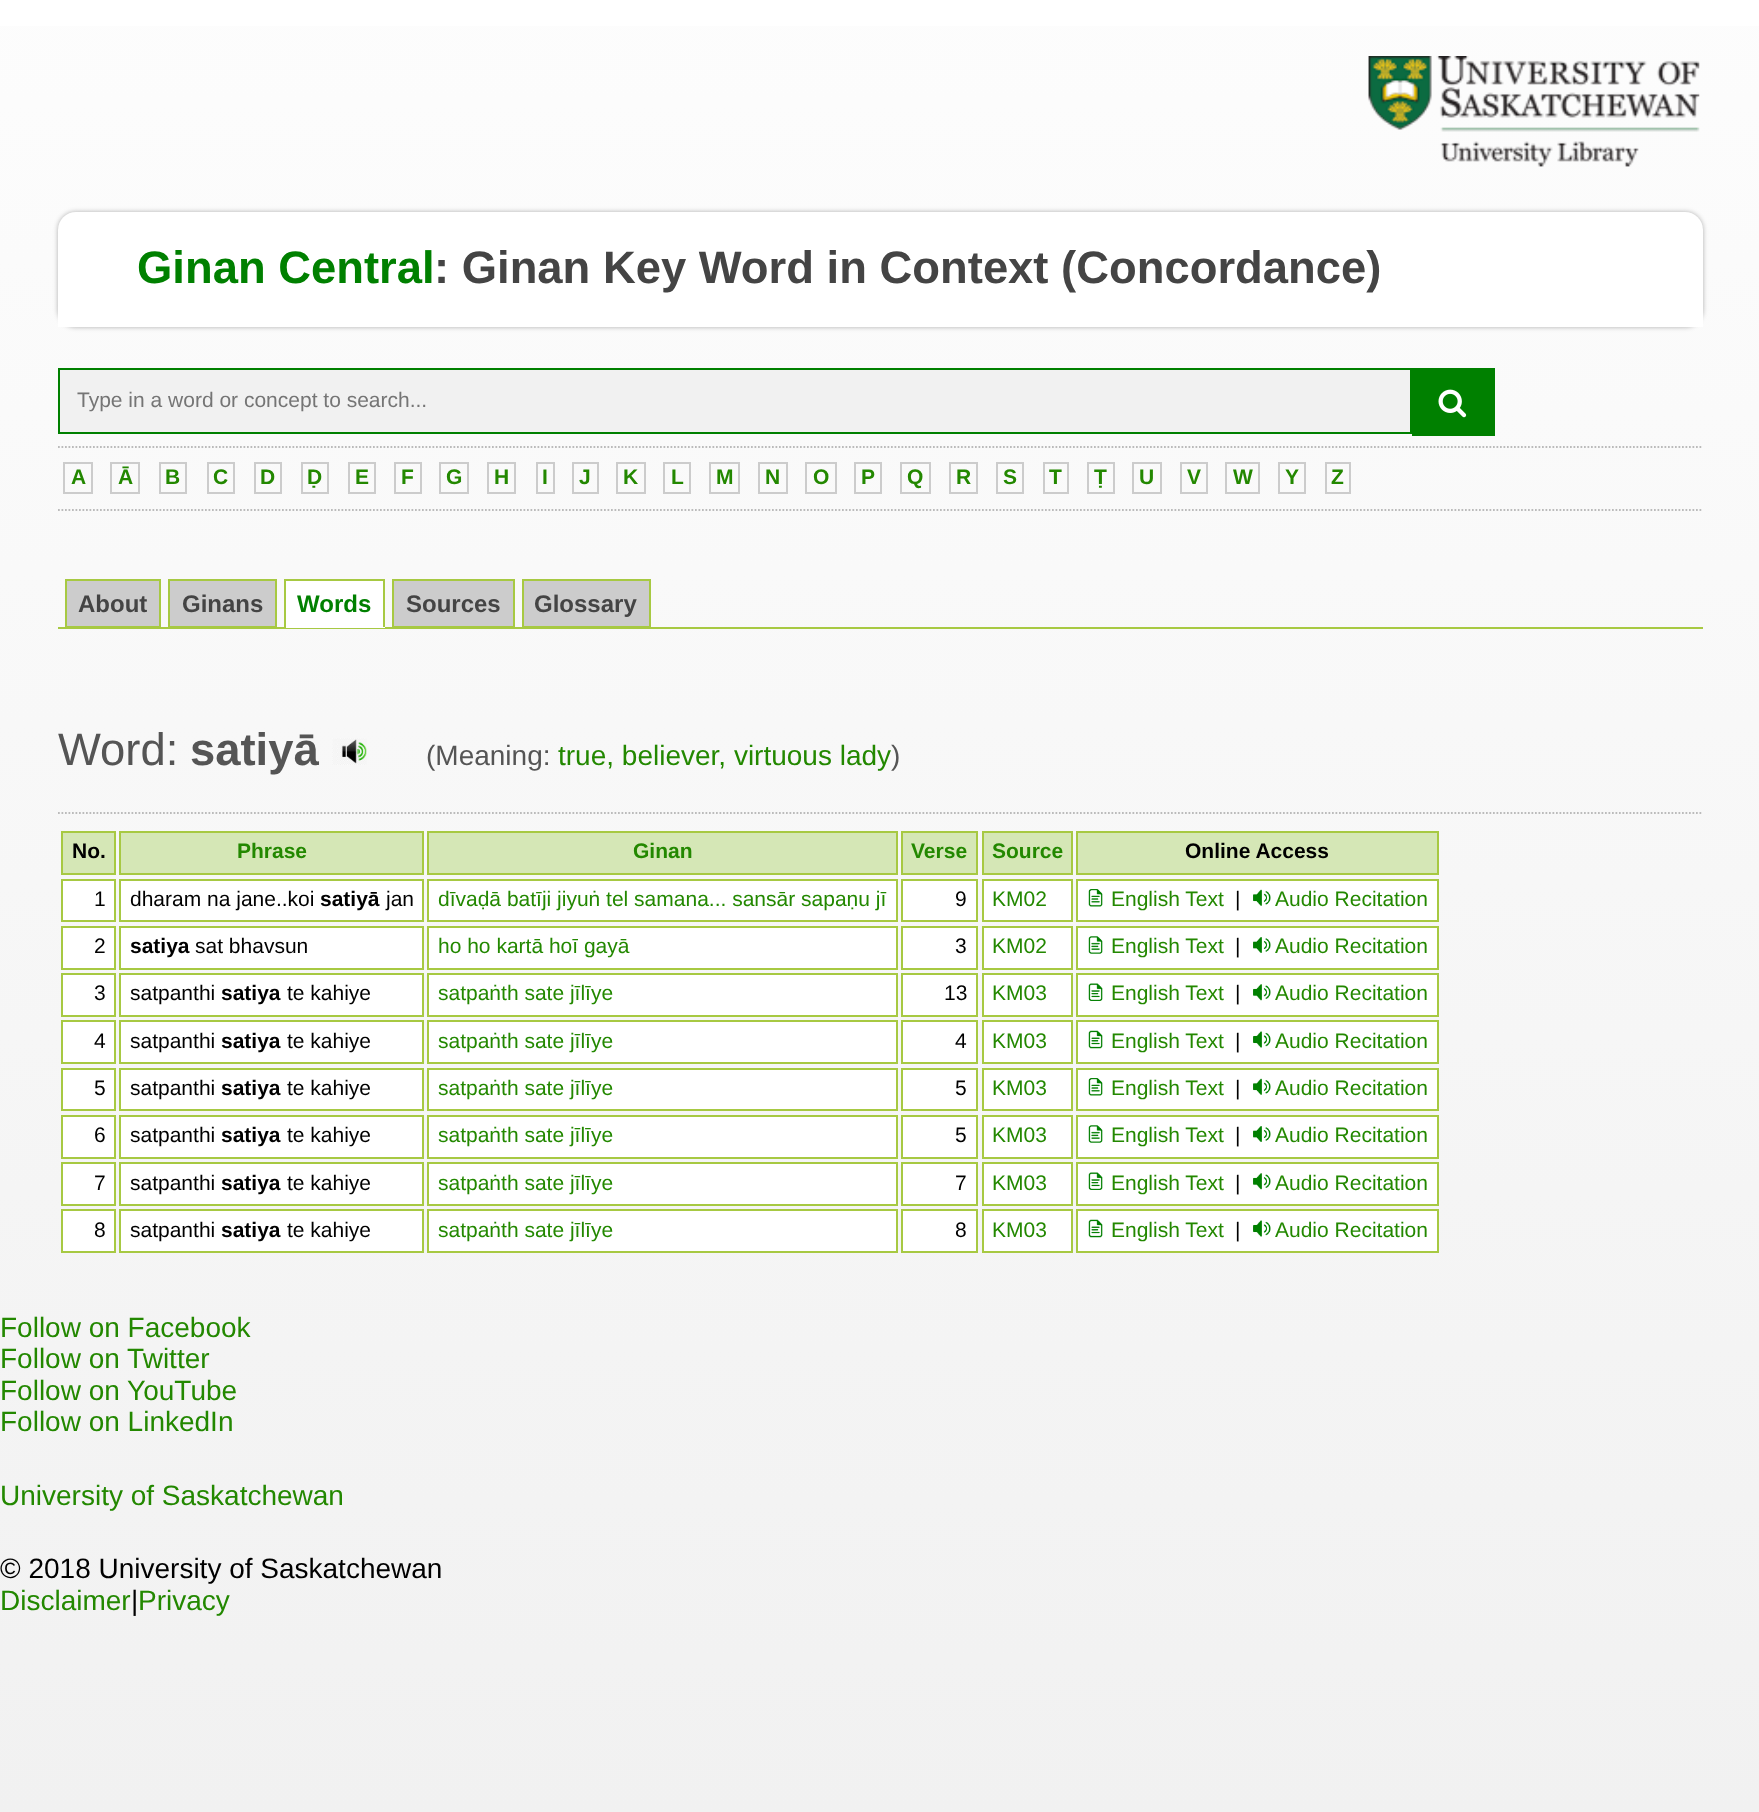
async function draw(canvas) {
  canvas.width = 1759
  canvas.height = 1812
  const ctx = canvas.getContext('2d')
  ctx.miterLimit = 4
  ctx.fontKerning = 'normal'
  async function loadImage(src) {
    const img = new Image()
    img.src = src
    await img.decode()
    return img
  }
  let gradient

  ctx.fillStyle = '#fff'
  ctx.fillRect(0, 0, 1759, 1812)
  gradient = ctx.createLinearGradient(0, 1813, 0, -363)
  gradient.addColorStop(0, '#f1f1f1')
  gradient.addColorStop(1, '#fff')
  ctx.fillStyle = gradient
  ctx.fillRect(0, 26, 1759, 1786)
  ctx.drawImage(await loadImage('image0.png'), 1368, 56, 332, 111)
  ctx.fillStyle = '#0000004d'
  ctx.filter = 'blur(2.5px)'
  ctx.beginPath()
  ctx.roundRect(58, 212, 1645, 115, 18)
  ctx.fill()
  ctx.filter = 'none'
  ctx.fillStyle = '#fff'
  ctx.beginPath()
  ctx.roundRect(58, 212, 1645, 115, [18, 18, 0, 0])
  ctx.fill()
  ctx.font = 'bold 45.4px Liberation Sans'
  ctx.fillStyle = '#008000'
  ctx.fillText('Ginan Central', 137, 283)
  ctx.fillStyle = '#444'
  ctx.fillText(': Ginan Key Word in Context (Concordance)', 434, 283)
  ctx.fillStyle = '#f1f1f1'
  ctx.beginPath()
  ctx.rect(59, 369, 1352, 64)
  ctx.fill()
  ctx.strokeStyle = '#008000'
  ctx.lineWidth = 2
  ctx.stroke()
  ctx.font = '21px Liberation Sans'
  ctx.fillStyle = '#757575'
  ctx.fillText('Type in a word or concept to search...', 77, 407)
  ctx.fillStyle = '#008000'
  ctx.fillRect(1412, 368, 83, 68)
  ctx.drawImage(await loadImage('image1.png'), 1438, 389, 29, 29)
  ctx.beginPath()
  ctx.moveTo(58, 447)
  ctx.lineTo(1703, 447)
  ctx.strokeStyle = '#bbb'
  ctx.lineWidth = 1.8
  ctx.setLineDash([1.75, 1.75])
  ctx.stroke()
  ctx.strokeStyle = '#ccc'
  ctx.lineWidth = 2
  ctx.setLineDash([])
  ctx.strokeRect(64, 463, 28, 30)
  ctx.font = 'bold 21px Liberation Sans'
  ctx.fillStyle = '#238800'
  ctx.fillText('A', 71, 484)
  ctx.strokeRect(111, 463, 28, 30)
  ctx.fillText('Ā', 118, 484)
  ctx.strokeRect(160, 463, 26, 30)
  ctx.fillText('B', 165, 484)
  ctx.strokeRect(208, 463, 26, 30)
  ctx.fillText('C', 213, 484)
  ctx.strokeRect(255, 463, 26, 30)
  ctx.fillText('D', 260, 484)
  ctx.strokeRect(302, 463, 26, 30)
  ctx.fillText('Ḍ', 307, 484)
  ctx.strokeRect(349, 463, 26, 30)
  ctx.fillText('E', 355, 484)
  ctx.strokeRect(395, 463, 26, 30)
  ctx.fillText('F', 401, 484)
  ctx.strokeRect(440, 463, 28, 30)
  ctx.fillText('G', 446, 484)
  ctx.strokeRect(488, 463, 27, 30)
  ctx.fillText('H', 494, 484)
  ctx.strokeRect(537, 463, 17, 30)
  ctx.fillText('I', 542, 484)
  ctx.strokeRect(573, 463, 25, 30)
  ctx.fillText('J', 579, 484)
  ctx.strokeRect(617, 463, 28, 30)
  ctx.fillText('K', 623, 484)
  ctx.strokeRect(664, 463, 26, 30)
  ctx.fillText('L', 671, 484)
  ctx.strokeRect(710, 463, 29, 30)
  ctx.fillText('M', 716, 484)
  ctx.strokeRect(759, 463, 28, 30)
  ctx.fillText('N', 765, 484)
  ctx.strokeRect(806, 463, 30, 30)
  ctx.fillText('O', 813, 484)
  ctx.strokeRect(855, 463, 26, 30)
  ctx.fillText('P', 861, 484)
  ctx.strokeRect(901, 463, 29, 30)
  ctx.fillText('Q', 907, 484)
  ctx.strokeRect(950, 463, 27, 30)
  ctx.fillText('R', 956, 484)
  ctx.strokeRect(997, 463, 26, 30)
  ctx.fillText('S', 1003, 484)
  ctx.strokeRect(1044, 463, 24, 30)
  ctx.fillText('T', 1049, 484)
  ctx.strokeRect(1088, 463, 26, 30)
  ctx.fillText('Ṭ', 1094, 484)
  ctx.strokeRect(1133, 463, 28, 30)
  ctx.fillText('U', 1139, 484)
  ctx.strokeRect(1181, 463, 26, 30)
  ctx.fillText('V', 1187, 484)
  ctx.strokeRect(1226, 463, 33, 30)
  ctx.fillText('W', 1233, 484)
  ctx.strokeRect(1279, 463, 26, 30)
  ctx.fillText('Y', 1285, 484)
  ctx.strokeRect(1326, 463, 24, 30)
  ctx.fillText('Z', 1331, 484)
  ctx.beginPath()
  ctx.moveTo(58, 510)
  ctx.lineTo(1703, 510)
  ctx.strokeStyle = '#bbb'
  ctx.lineWidth = 1.8
  ctx.setLineDash([1.75, 1.75])
  ctx.stroke()
  ctx.fillStyle = '#a7c942'
  ctx.fillRect(58, 627, 1645, 2)
  ctx.fillStyle = '#ccc'
  ctx.beginPath()
  ctx.rect(66, 580, 94, 47)
  ctx.fill()
  ctx.strokeStyle = '#a7c942'
  ctx.lineWidth = 2
  ctx.setLineDash([])
  ctx.stroke()
  ctx.font = 'bold 24px Liberation Sans'
  ctx.fillStyle = '#444'
  ctx.fillText('About', 78, 612)
  ctx.fillStyle = '#ccc'
  ctx.beginPath()
  ctx.rect(169, 580, 107, 47)
  ctx.fill()
  ctx.stroke()
  ctx.fillStyle = '#444'
  ctx.fillText('Ginans', 182, 612)
  ctx.fillStyle = '#fff'
  ctx.fillRect(286, 581, 97, 46)
  ctx.fillStyle = '#a7c942'
  ctx.fillRect(284, 579, 101, 2)
  ctx.fillRect(383, 579, 2, 49)
  ctx.fillStyle = '#fff'
  ctx.fillRect(284, 627, 101, 1)
  ctx.fillStyle = '#a7c942'
  ctx.fillRect(284, 579, 2, 49)
  ctx.fillStyle = '#008000'
  ctx.fillText('Words', 297, 612)
  ctx.fillStyle = '#ccc'
  ctx.beginPath()
  ctx.rect(393, 580, 121, 47)
  ctx.fill()
  ctx.stroke()
  ctx.fillStyle = '#444'
  ctx.fillText('Sources', 406, 612)
  ctx.fillStyle = '#ccc'
  ctx.beginPath()
  ctx.rect(523, 580, 127, 47)
  ctx.fill()
  ctx.stroke()
  ctx.fillStyle = '#444'
  ctx.fillText('Glossary', 534, 612)
  ctx.font = '45.4px Liberation Sans'
  ctx.fillStyle = '#555'
  ctx.fillText('Word:', 58, 765)
  ctx.font = 'bold 45.4px Liberation Sans'
  ctx.fillText('satiyā', 190, 765)
  ctx.drawImage(await loadImage('image2.png'), 332, 738, 35, 27)
  ctx.font = '28px Liberation Sans'
  ctx.fillText('(Meaning:', 426, 765)
  ctx.fillStyle = '#238800'
  ctx.fillText('true, believer, virtuous lady', 558, 765)
  ctx.fillStyle = '#555'
  ctx.fillText(')', 891, 765)
  ctx.beginPath()
  ctx.moveTo(58, 813)
  ctx.lineTo(1703, 813)
  ctx.strokeStyle = '#bbb'
  ctx.lineWidth = 1.8
  ctx.setLineDash([1.75, 1.75])
  ctx.stroke()
  ctx.fillStyle = '#d5e7b6'
  ctx.beginPath()
  ctx.rect(62, 832, 53, 42)
  ctx.fill()
  ctx.strokeStyle = '#a7c942'
  ctx.lineWidth = 2
  ctx.setLineDash([])
  ctx.stroke()
  ctx.font = 'bold 21px Liberation Sans'
  ctx.fillStyle = '#000'
  ctx.fillText('No.', 72, 858)
  ctx.fillStyle = '#d5e7b6'
  ctx.beginPath()
  ctx.rect(120, 832, 303, 42)
  ctx.fill()
  ctx.stroke()
  ctx.fillStyle = '#238800'
  ctx.fillText('Phrase', 237, 858)
  ctx.fillStyle = '#d5e7b6'
  ctx.beginPath()
  ctx.rect(428, 832, 469, 42)
  ctx.fill()
  ctx.stroke()
  ctx.fillStyle = '#238800'
  ctx.fillText('Ginan', 633, 858)
  ctx.fillStyle = '#d5e7b6'
  ctx.beginPath()
  ctx.rect(902, 832, 75, 42)
  ctx.fill()
  ctx.stroke()
  ctx.fillStyle = '#238800'
  ctx.fillText('Verse', 911, 858)
  ctx.fillStyle = '#d5e7b6'
  ctx.beginPath()
  ctx.rect(983, 832, 89, 42)
  ctx.fill()
  ctx.stroke()
  ctx.fillStyle = '#238800'
  ctx.fillText('Source', 992, 858)
  ctx.fillStyle = '#d5e7b6'
  ctx.beginPath()
  ctx.rect(1077, 832, 361, 42)
  ctx.fill()
  ctx.stroke()
  ctx.fillStyle = '#000'
  ctx.fillText('Online Access', 1185, 858)
  ctx.fillStyle = '#fff'
  ctx.beginPath()
  ctx.rect(62, 880, 53, 41)
  ctx.fill()
  ctx.stroke()
  ctx.font = '21px Liberation Sans'
  ctx.fillStyle = '#000'
  ctx.fillText('1', 94, 906)
  ctx.fillStyle = '#fff'
  ctx.beginPath()
  ctx.rect(120, 880, 303, 41)
  ctx.fill()
  ctx.stroke()
  ctx.fillStyle = '#000'
  ctx.fillText('dharam na jane..koi', 130, 906)
  ctx.font = 'bold 21px Liberation Sans'
  ctx.fillText('satiyā', 320, 906)
  ctx.font = '21px Liberation Sans'
  ctx.fillText('jan', 386, 906)
  ctx.fillStyle = '#fff'
  ctx.beginPath()
  ctx.rect(428, 880, 469, 41)
  ctx.fill()
  ctx.stroke()
  ctx.fillStyle = '#238800'
  ctx.fillText('dīvaḍā batīji jiyuṅ tel samana... sansār sapaṇu jī', 438, 906)
  ctx.fillStyle = '#fff'
  ctx.beginPath()
  ctx.rect(902, 880, 75, 41)
  ctx.fill()
  ctx.stroke()
  ctx.fillStyle = '#000'
  ctx.fillText('9', 955, 906)
  ctx.fillStyle = '#fff'
  ctx.beginPath()
  ctx.rect(983, 880, 89, 41)
  ctx.fill()
  ctx.stroke()
  ctx.fillStyle = '#238800'
  ctx.fillText('KM02', 992, 906)
  ctx.fillStyle = '#fff'
  ctx.beginPath()
  ctx.rect(1077, 880, 361, 41)
  ctx.fill()
  ctx.stroke()
  ctx.drawImage(await loadImage('image3.png'), 1088, 889, 15, 18)
  ctx.fillStyle = '#238800'
  ctx.fillText('English Text', 1111, 906)
  ctx.fillStyle = '#000'
  ctx.fillText('|', 1235, 906)
  ctx.drawImage(await loadImage('image4.png'), 1253, 889, 18, 17)
  ctx.fillStyle = '#238800'
  ctx.fillText('Audio Recitation', 1275, 906)
  ctx.fillStyle = '#fff'
  ctx.beginPath()
  ctx.rect(62, 927, 53, 42)
  ctx.fill()
  ctx.stroke()
  ctx.fillStyle = '#000'
  ctx.fillText('2', 94, 953)
  ctx.fillStyle = '#fff'
  ctx.beginPath()
  ctx.rect(120, 927, 303, 42)
  ctx.fill()
  ctx.stroke()
  ctx.font = 'bold 21px Liberation Sans'
  ctx.fillStyle = '#000'
  ctx.fillText('satiya', 130, 953)
  ctx.font = '21px Liberation Sans'
  ctx.fillText('sat bhavsun', 195, 953)
  ctx.fillStyle = '#fff'
  ctx.beginPath()
  ctx.rect(428, 927, 469, 42)
  ctx.fill()
  ctx.stroke()
  ctx.fillStyle = '#238800'
  ctx.fillText('ho ho kartā hoī gayā', 438, 953)
  ctx.fillStyle = '#fff'
  ctx.beginPath()
  ctx.rect(902, 927, 75, 42)
  ctx.fill()
  ctx.stroke()
  ctx.fillStyle = '#000'
  ctx.fillText('3', 955, 953)
  ctx.fillStyle = '#fff'
  ctx.beginPath()
  ctx.rect(983, 927, 89, 42)
  ctx.fill()
  ctx.stroke()
  ctx.fillStyle = '#238800'
  ctx.fillText('KM02', 992, 953)
  ctx.fillStyle = '#fff'
  ctx.beginPath()
  ctx.rect(1077, 927, 361, 42)
  ctx.fill()
  ctx.stroke()
  ctx.drawImage(await loadImage('image5.png'), 1088, 936, 15, 18)
  ctx.fillStyle = '#238800'
  ctx.fillText('English Text', 1111, 953)
  ctx.fillStyle = '#000'
  ctx.fillText('|', 1235, 953)
  ctx.drawImage(await loadImage('image6.png'), 1253, 937, 18, 16)
  ctx.fillStyle = '#238800'
  ctx.fillText('Audio Recitation', 1275, 953)
  ctx.fillStyle = '#fff'
  ctx.beginPath()
  ctx.rect(62, 974, 53, 42)
  ctx.fill()
  ctx.stroke()
  ctx.fillStyle = '#000'
  ctx.fillText('3', 94, 1000)
  ctx.fillStyle = '#fff'
  ctx.beginPath()
  ctx.rect(120, 974, 303, 42)
  ctx.fill()
  ctx.stroke()
  ctx.fillStyle = '#000'
  ctx.fillText('satpanthi', 130, 1000)
  ctx.font = 'bold 21px Liberation Sans'
  ctx.fillText('satiya', 221, 1000)
  ctx.font = '21px Liberation Sans'
  ctx.fillText('te kahiye', 287, 1000)
  ctx.fillStyle = '#fff'
  ctx.beginPath()
  ctx.rect(428, 974, 469, 42)
  ctx.fill()
  ctx.stroke()
  ctx.fillStyle = '#238800'
  ctx.fillText('satpaṅth sate jīlīye', 438, 1000)
  ctx.fillStyle = '#fff'
  ctx.beginPath()
  ctx.rect(902, 974, 75, 42)
  ctx.fill()
  ctx.stroke()
  ctx.fillStyle = '#000'
  ctx.fillText('13', 944, 1000)
  ctx.fillStyle = '#fff'
  ctx.beginPath()
  ctx.rect(983, 974, 89, 42)
  ctx.fill()
  ctx.stroke()
  ctx.fillStyle = '#238800'
  ctx.fillText('KM03', 992, 1000)
  ctx.fillStyle = '#fff'
  ctx.beginPath()
  ctx.rect(1077, 974, 361, 42)
  ctx.fill()
  ctx.stroke()
  ctx.drawImage(await loadImage('image7.png'), 1088, 983, 15, 18)
  ctx.fillStyle = '#238800'
  ctx.fillText('English Text', 1111, 1000)
  ctx.fillStyle = '#000'
  ctx.fillText('|', 1235, 1000)
  ctx.drawImage(await loadImage('image8.png'), 1253, 984, 18, 17)
  ctx.fillStyle = '#238800'
  ctx.fillText('Audio Recitation', 1275, 1000)
  ctx.fillStyle = '#fff'
  ctx.beginPath()
  ctx.rect(62, 1021, 53, 42)
  ctx.fill()
  ctx.stroke()
  ctx.fillStyle = '#000'
  ctx.fillText('4', 94, 1048)
  ctx.fillStyle = '#fff'
  ctx.beginPath()
  ctx.rect(120, 1021, 303, 42)
  ctx.fill()
  ctx.stroke()
  ctx.fillStyle = '#000'
  ctx.fillText('satpanthi', 130, 1048)
  ctx.font = 'bold 21px Liberation Sans'
  ctx.fillText('satiya', 221, 1048)
  ctx.font = '21px Liberation Sans'
  ctx.fillText('te kahiye', 287, 1048)
  ctx.fillStyle = '#fff'
  ctx.beginPath()
  ctx.rect(428, 1021, 469, 42)
  ctx.fill()
  ctx.stroke()
  ctx.fillStyle = '#238800'
  ctx.fillText('satpaṅth sate jīlīye', 438, 1048)
  ctx.fillStyle = '#fff'
  ctx.beginPath()
  ctx.rect(902, 1021, 75, 42)
  ctx.fill()
  ctx.stroke()
  ctx.fillStyle = '#000'
  ctx.fillText('4', 955, 1048)
  ctx.fillStyle = '#fff'
  ctx.beginPath()
  ctx.rect(983, 1021, 89, 42)
  ctx.fill()
  ctx.stroke()
  ctx.fillStyle = '#238800'
  ctx.fillText('KM03', 992, 1048)
  ctx.fillStyle = '#fff'
  ctx.beginPath()
  ctx.rect(1077, 1021, 361, 42)
  ctx.fill()
  ctx.stroke()
  ctx.drawImage(await loadImage('image9.png'), 1088, 1030, 15, 19)
  ctx.fillStyle = '#238800'
  ctx.fillText('English Text', 1111, 1048)
  ctx.fillStyle = '#000'
  ctx.fillText('|', 1235, 1048)
  ctx.drawImage(await loadImage('image10.png'), 1253, 1031, 18, 17)
  ctx.fillStyle = '#238800'
  ctx.fillText('Audio Recitation', 1275, 1048)
  ctx.fillStyle = '#fff'
  ctx.beginPath()
  ctx.rect(62, 1069, 53, 41)
  ctx.fill()
  ctx.stroke()
  ctx.fillStyle = '#000'
  ctx.fillText('5', 94, 1095)
  ctx.fillStyle = '#fff'
  ctx.beginPath()
  ctx.rect(120, 1069, 303, 41)
  ctx.fill()
  ctx.stroke()
  ctx.fillStyle = '#000'
  ctx.fillText('satpanthi', 130, 1095)
  ctx.font = 'bold 21px Liberation Sans'
  ctx.fillText('satiya', 221, 1095)
  ctx.font = '21px Liberation Sans'
  ctx.fillText('te kahiye', 287, 1095)
  ctx.fillStyle = '#fff'
  ctx.beginPath()
  ctx.rect(428, 1069, 469, 41)
  ctx.fill()
  ctx.stroke()
  ctx.fillStyle = '#238800'
  ctx.fillText('satpaṅth sate jīlīye', 438, 1095)
  ctx.fillStyle = '#fff'
  ctx.beginPath()
  ctx.rect(902, 1069, 75, 41)
  ctx.fill()
  ctx.stroke()
  ctx.fillStyle = '#000'
  ctx.fillText('5', 955, 1095)
  ctx.fillStyle = '#fff'
  ctx.beginPath()
  ctx.rect(983, 1069, 89, 41)
  ctx.fill()
  ctx.stroke()
  ctx.fillStyle = '#238800'
  ctx.fillText('KM03', 992, 1095)
  ctx.fillStyle = '#fff'
  ctx.beginPath()
  ctx.rect(1077, 1069, 361, 41)
  ctx.fill()
  ctx.stroke()
  ctx.drawImage(await loadImage('image3.png'), 1088, 1078, 15, 18)
  ctx.fillStyle = '#238800'
  ctx.fillText('English Text', 1111, 1095)
  ctx.fillStyle = '#000'
  ctx.fillText('|', 1235, 1095)
  ctx.drawImage(await loadImage('image4.png'), 1253, 1078, 18, 17)
  ctx.fillStyle = '#238800'
  ctx.fillText('Audio Recitation', 1275, 1095)
  ctx.fillStyle = '#fff'
  ctx.beginPath()
  ctx.rect(62, 1116, 53, 42)
  ctx.fill()
  ctx.stroke()
  ctx.fillStyle = '#000'
  ctx.fillText('6', 94, 1142)
  ctx.fillStyle = '#fff'
  ctx.beginPath()
  ctx.rect(120, 1116, 303, 42)
  ctx.fill()
  ctx.stroke()
  ctx.fillStyle = '#000'
  ctx.fillText('satpanthi', 130, 1142)
  ctx.font = 'bold 21px Liberation Sans'
  ctx.fillText('satiya', 221, 1142)
  ctx.font = '21px Liberation Sans'
  ctx.fillText('te kahiye', 287, 1142)
  ctx.fillStyle = '#fff'
  ctx.beginPath()
  ctx.rect(428, 1116, 469, 42)
  ctx.fill()
  ctx.stroke()
  ctx.fillStyle = '#238800'
  ctx.fillText('satpaṅth sate jīlīye', 438, 1142)
  ctx.fillStyle = '#fff'
  ctx.beginPath()
  ctx.rect(902, 1116, 75, 42)
  ctx.fill()
  ctx.stroke()
  ctx.fillStyle = '#000'
  ctx.fillText('5', 955, 1142)
  ctx.fillStyle = '#fff'
  ctx.beginPath()
  ctx.rect(983, 1116, 89, 42)
  ctx.fill()
  ctx.stroke()
  ctx.fillStyle = '#238800'
  ctx.fillText('KM03', 992, 1142)
  ctx.fillStyle = '#fff'
  ctx.beginPath()
  ctx.rect(1077, 1116, 361, 42)
  ctx.fill()
  ctx.stroke()
  ctx.drawImage(await loadImage('image5.png'), 1088, 1125, 15, 18)
  ctx.fillStyle = '#238800'
  ctx.fillText('English Text', 1111, 1142)
  ctx.fillStyle = '#000'
  ctx.fillText('|', 1235, 1142)
  ctx.drawImage(await loadImage('image6.png'), 1253, 1126, 18, 16)
  ctx.fillStyle = '#238800'
  ctx.fillText('Audio Recitation', 1275, 1142)
  ctx.fillStyle = '#fff'
  ctx.beginPath()
  ctx.rect(62, 1163, 53, 42)
  ctx.fill()
  ctx.stroke()
  ctx.fillStyle = '#000'
  ctx.fillText('7', 94, 1190)
  ctx.fillStyle = '#fff'
  ctx.beginPath()
  ctx.rect(120, 1163, 303, 42)
  ctx.fill()
  ctx.stroke()
  ctx.fillStyle = '#000'
  ctx.fillText('satpanthi', 130, 1190)
  ctx.font = 'bold 21px Liberation Sans'
  ctx.fillText('satiya', 221, 1190)
  ctx.font = '21px Liberation Sans'
  ctx.fillText('te kahiye', 287, 1190)
  ctx.fillStyle = '#fff'
  ctx.beginPath()
  ctx.rect(428, 1163, 469, 42)
  ctx.fill()
  ctx.stroke()
  ctx.fillStyle = '#238800'
  ctx.fillText('satpaṅth sate jīlīye', 438, 1190)
  ctx.fillStyle = '#fff'
  ctx.beginPath()
  ctx.rect(902, 1163, 75, 42)
  ctx.fill()
  ctx.stroke()
  ctx.fillStyle = '#000'
  ctx.fillText('7', 955, 1190)
  ctx.fillStyle = '#fff'
  ctx.beginPath()
  ctx.rect(983, 1163, 89, 42)
  ctx.fill()
  ctx.stroke()
  ctx.fillStyle = '#238800'
  ctx.fillText('KM03', 992, 1190)
  ctx.fillStyle = '#fff'
  ctx.beginPath()
  ctx.rect(1077, 1163, 361, 42)
  ctx.fill()
  ctx.stroke()
  ctx.drawImage(await loadImage('image7.png'), 1088, 1172, 15, 18)
  ctx.fillStyle = '#238800'
  ctx.fillText('English Text', 1111, 1190)
  ctx.fillStyle = '#000'
  ctx.fillText('|', 1235, 1190)
  ctx.drawImage(await loadImage('image8.png'), 1253, 1173, 18, 17)
  ctx.fillStyle = '#238800'
  ctx.fillText('Audio Recitation', 1275, 1190)
  ctx.fillStyle = '#fff'
  ctx.beginPath()
  ctx.rect(62, 1210, 53, 42)
  ctx.fill()
  ctx.stroke()
  ctx.fillStyle = '#000'
  ctx.fillText('8', 94, 1237)
  ctx.fillStyle = '#fff'
  ctx.beginPath()
  ctx.rect(120, 1210, 303, 42)
  ctx.fill()
  ctx.stroke()
  ctx.fillStyle = '#000'
  ctx.fillText('satpanthi', 130, 1237)
  ctx.font = 'bold 21px Liberation Sans'
  ctx.fillText('satiya', 221, 1237)
  ctx.font = '21px Liberation Sans'
  ctx.fillText('te kahiye', 287, 1237)
  ctx.fillStyle = '#fff'
  ctx.beginPath()
  ctx.rect(428, 1210, 469, 42)
  ctx.fill()
  ctx.stroke()
  ctx.fillStyle = '#238800'
  ctx.fillText('satpaṅth sate jīlīye', 438, 1237)
  ctx.fillStyle = '#fff'
  ctx.beginPath()
  ctx.rect(902, 1210, 75, 42)
  ctx.fill()
  ctx.stroke()
  ctx.fillStyle = '#000'
  ctx.fillText('8', 955, 1237)
  ctx.fillStyle = '#fff'
  ctx.beginPath()
  ctx.rect(983, 1210, 89, 42)
  ctx.fill()
  ctx.stroke()
  ctx.fillStyle = '#238800'
  ctx.fillText('KM03', 992, 1237)
  ctx.fillStyle = '#fff'
  ctx.beginPath()
  ctx.rect(1077, 1210, 361, 42)
  ctx.fill()
  ctx.stroke()
  ctx.drawImage(await loadImage('image11.png'), 1088, 1219, 15, 19)
  ctx.fillStyle = '#238800'
  ctx.fillText('English Text', 1111, 1237)
  ctx.fillStyle = '#000'
  ctx.fillText('|', 1235, 1237)
  ctx.drawImage(await loadImage('image10.png'), 1253, 1220, 18, 17)
  ctx.fillStyle = '#238800'
  ctx.fillText('Audio Recitation', 1275, 1237)
  ctx.font = '28px Liberation Sans'
  ctx.fillText('Follow on Facebook', 0, 1337)
  ctx.fillText('Follow on Twitter', 0, 1368)
  ctx.fillText('Follow on YouTube', 0, 1400)
  ctx.fillText('Follow on LinkedIn', 0, 1431)
  ctx.fillText('University of Saskatchewan', 0, 1505)
  ctx.fillStyle = '#000'
  ctx.fillText('© 2018 University of Saskatchewan', 0, 1578)
  ctx.fillStyle = '#238800'
  ctx.fillText('Disclaimer', 0, 1610)
  ctx.fillStyle = '#000'
  ctx.fillText('|', 131, 1610)
  ctx.fillStyle = '#238800'
  ctx.fillText('Privacy', 138, 1610)
}

draw(document.querySelector('canvas'))
